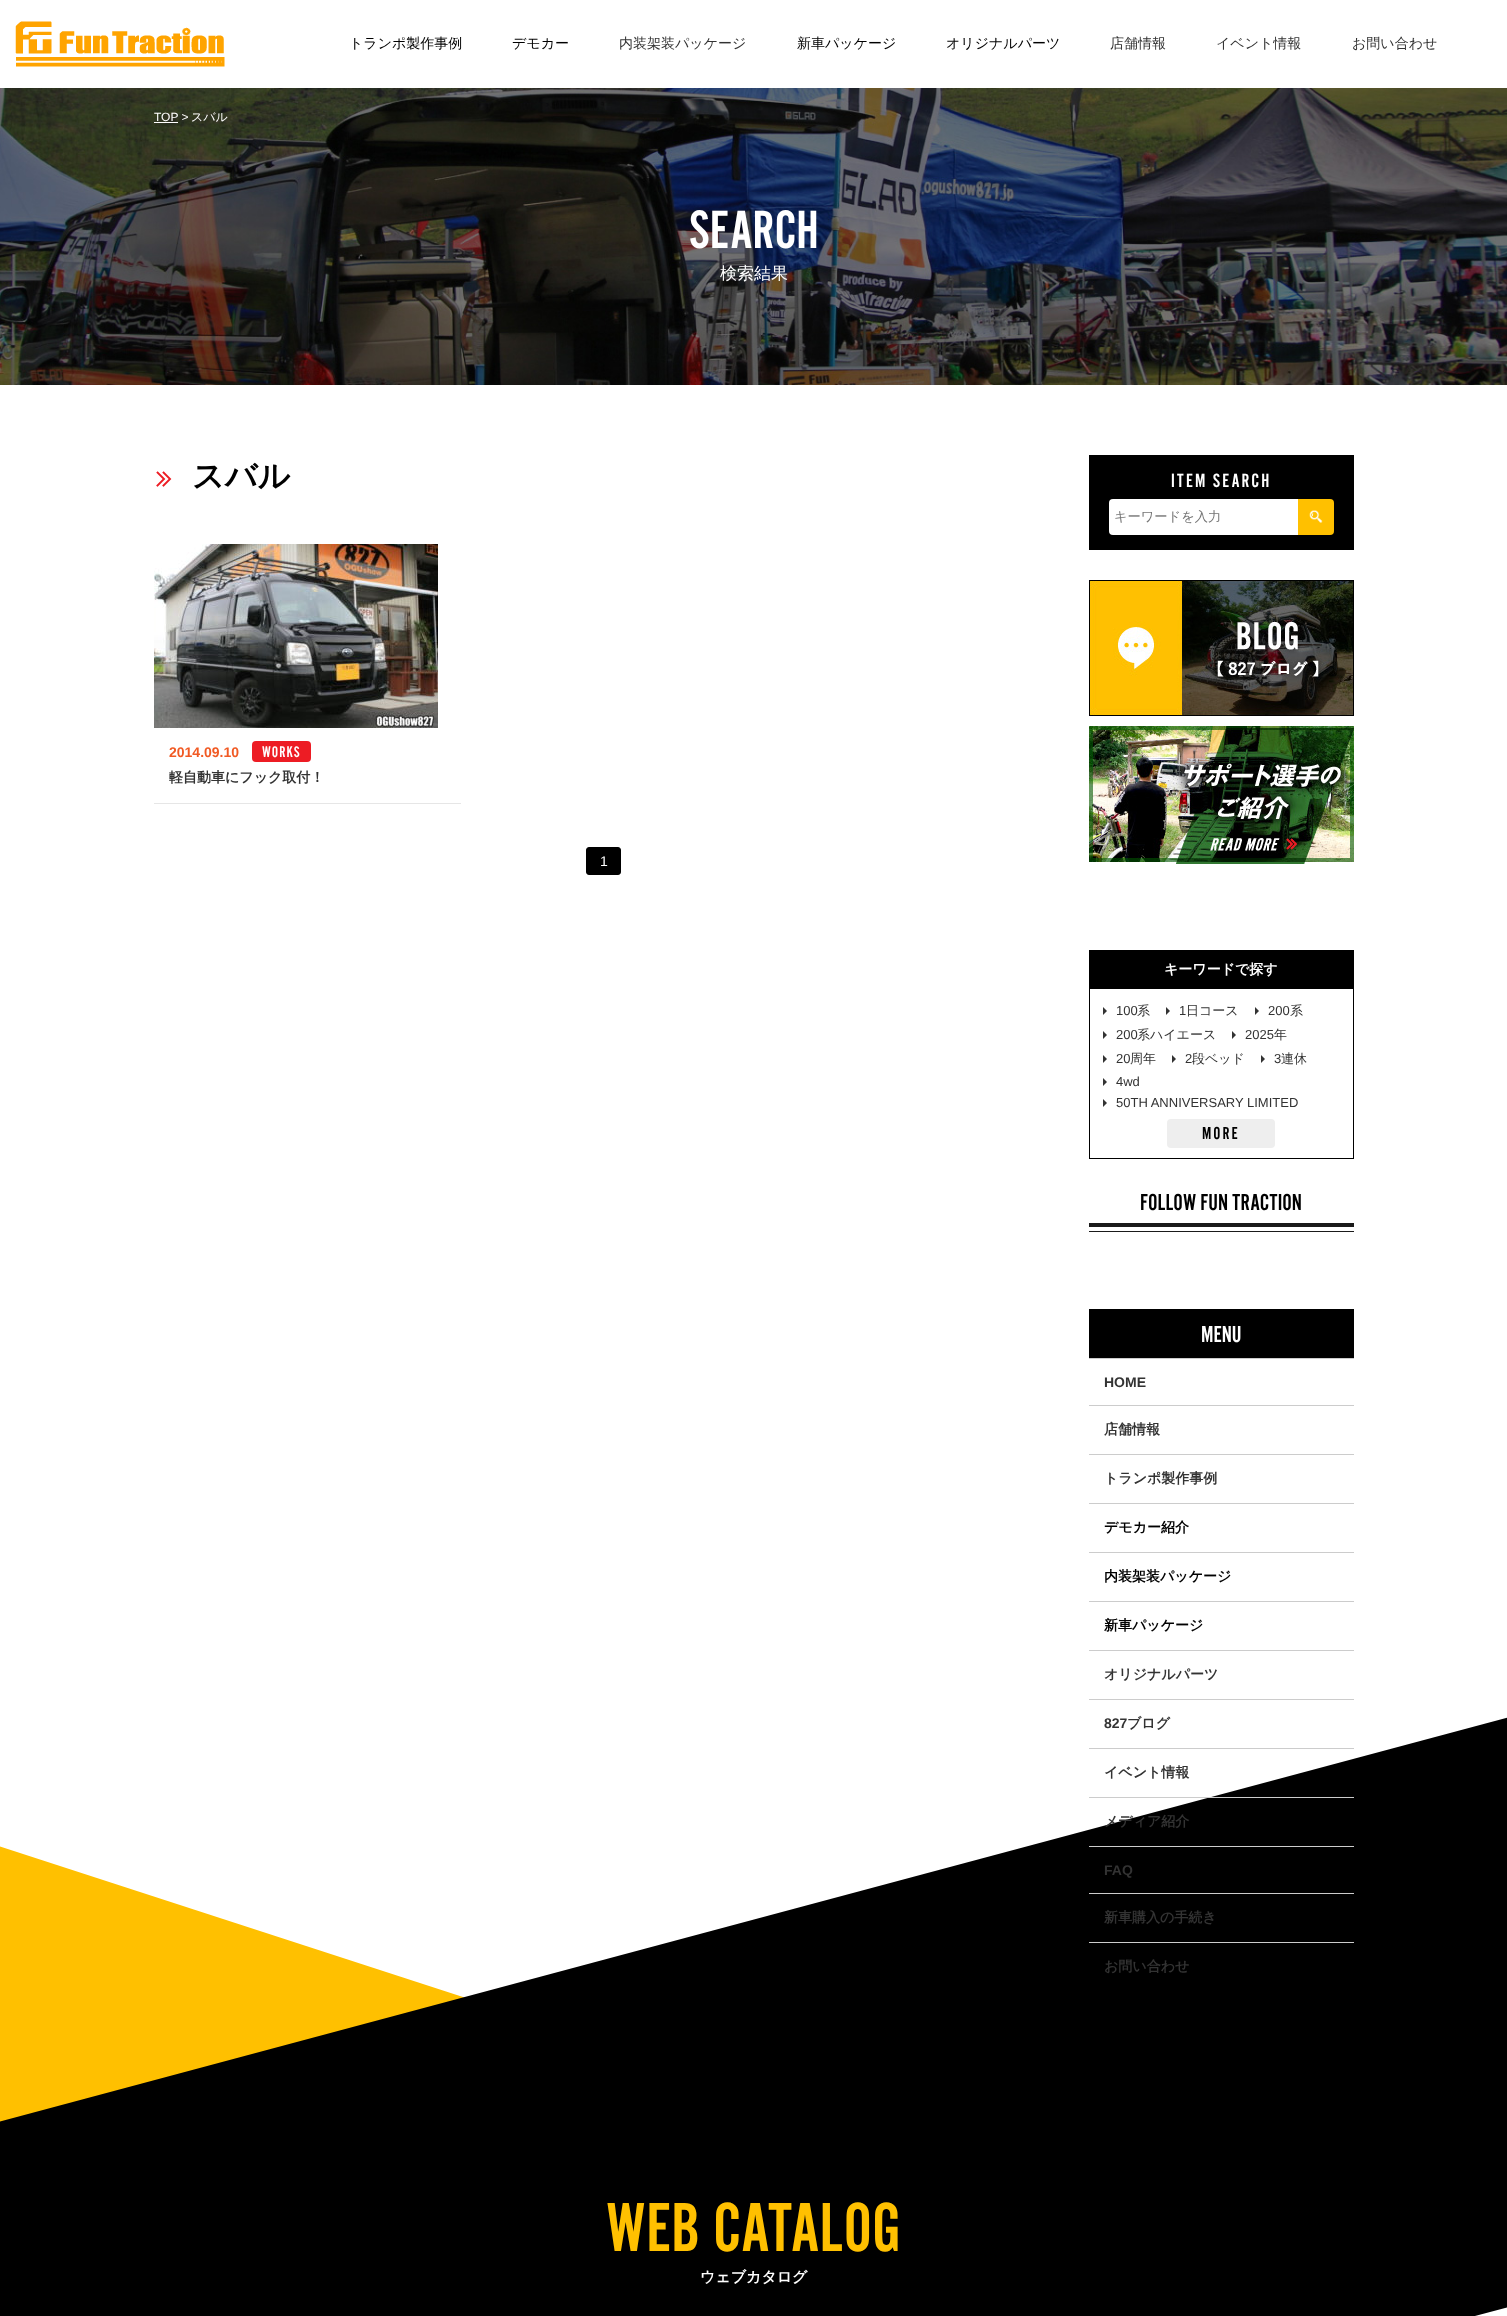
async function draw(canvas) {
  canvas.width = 1507
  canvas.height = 2316
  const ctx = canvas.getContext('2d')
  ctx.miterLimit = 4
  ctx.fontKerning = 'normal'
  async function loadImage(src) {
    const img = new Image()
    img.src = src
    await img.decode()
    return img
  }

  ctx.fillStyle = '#fff'
  ctx.fillRect(0, 0, 1507, 2316)
  ctx.drawImage(await loadImage('image0.png'), 15, 21, 210, 46)
  ctx.font = '500 14px WenQuanYi Zen Hei'
  ctx.fillStyle = '#000'
  ctx.fillText('トランポ製作事例', 349, 48)
  ctx.fillText('デモカー', 512, 48)
  ctx.fillStyle = '#333'
  ctx.fillText('内装架装パッケージ', 619, 48)
  ctx.fillStyle = '#000'
  ctx.fillText('新車パッケージ', 797, 48)
  ctx.fillText('オリジナルパーツ', 946, 48)
  ctx.fillStyle = '#333'
  ctx.fillText('店舗情報', 1110, 48)
  ctx.fillText('イベント情報', 1216, 48)
  ctx.fillText('お問い合わせ', 1352, 48)
  ctx.drawImage(await loadImage('image1.png'), 0, 88, 1507, 297)
  ctx.font = '12px Liberation Sans'
  ctx.fillStyle = '#fff'
  ctx.fillText('TOP >', 154, 121)
  ctx.fillRect(154, 122, 24, 1)
  ctx.font = '500 12px WenQuanYi Zen Hei'
  ctx.fillText('スバル', 191, 121)
  ctx.font = '56px "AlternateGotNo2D"'
  ctx.fillText('SEARCH', 689, 248)
  ctx.font = '500 17px WenQuanYi Zen Hei'
  ctx.fillText('検索結果', 720, 279)
  ctx.drawImage(await loadImage('image2.png'), 156, 471, 16, 16)
  ctx.font = 'bold 32px WenQuanYi Zen Hei'
  ctx.fillStyle = '#000'
  ctx.fillText('スバル', 192, 487)
  ctx.fillStyle = '#e6e6e6'
  ctx.fillRect(154, 803, 307, 1)
  ctx.drawImage(await loadImage('image3.png'), 154, 544, 284, 184)
  ctx.font = 'bold 14px Liberation Sans'
  ctx.fillStyle = '#f15a24'
  ctx.fillText('2014.09.10', 169, 757)
  ctx.fillStyle = '#ed1c24'
  ctx.beginPath()
  ctx.roundRect(252, 741, 59, 21, 4)
  ctx.fill()
  ctx.letterSpacing = '1px'
  ctx.font = '16px "AlternateGotNo2D"'
  ctx.fillStyle = '#fff'
  ctx.fillText('WORKS', 262, 757)
  ctx.letterSpacing = '0px'
  ctx.font = 'bold 14px WenQuanYi Zen Hei'
  ctx.fillStyle = '#333'
  ctx.fillText('軽自動車にフック取付！', 169, 782)
  ctx.fillStyle = '#000'
  ctx.beginPath()
  ctx.roundRect(586.5, 847.5, 34, 27, 2.5)
  ctx.fill()
  ctx.strokeStyle = '#000'
  ctx.stroke()
  ctx.font = '14px Liberation Sans'
  ctx.fillStyle = '#fff'
  ctx.fillText('1', 600, 866)
  ctx.fillStyle = '#000'
  ctx.fillRect(1089, 455, 265, 95)
  ctx.letterSpacing = '2px'
  ctx.font = '20px "AlternateGotNo2D"'
  ctx.fillStyle = '#fff'
  ctx.fillText('ITEM SEARCH', 1171, 487)
  ctx.beginPath()
  ctx.roundRect(1109, 499, 189, 36, [4, 0, 0, 4])
  ctx.fill()
  ctx.letterSpacing = '0px'
  ctx.font = '500 13.25px WenQuanYi Zen Hei'
  ctx.fillStyle = '#757575'
  ctx.fillText('キーワードを入力', 1114, 521)
  ctx.fillStyle = '#ffc000'
  ctx.beginPath()
  ctx.roundRect(1298, 499, 36, 36, [0, 4, 4, 0])
  ctx.fill()
  ctx.drawImage(await loadImage('image4.png'), 1309, 510, 14, 13)
  ctx.drawImage(await loadImage('image5.png'), 1089, 580, 265, 136)
  ctx.drawImage(await loadImage('image6.png'), 1089, 726, 265, 138)
  ctx.strokeRect(1089.5, 950.5, 264, 208)
  ctx.fillStyle = '#000'
  ctx.fillRect(1090, 951, 263, 38)
  ctx.font = 'bold 14px WenQuanYi Zen Hei'
  ctx.fillStyle = '#fff'
  ctx.fillText('キーワードで探す', 1164, 974)
  ctx.fillStyle = '#333'
  ctx.beginPath()
  ctx.moveTo(1103, 1015)
  ctx.lineTo(1103, 1007)
  ctx.lineTo(1107, 1011)
  ctx.closePath()
  ctx.fill()
  ctx.font = '13px Liberation Sans'
  ctx.fillText('100', 1116, 1015)
  ctx.font = '500 13px WenQuanYi Zen Hei'
  ctx.fillText('系', 1137, 1015)
  ctx.beginPath()
  ctx.moveTo(1166, 1015)
  ctx.lineTo(1166, 1007)
  ctx.lineTo(1170, 1011)
  ctx.closePath()
  ctx.fill()
  ctx.font = '13px Liberation Sans'
  ctx.fillText('1', 1179, 1015)
  ctx.font = '500 13px WenQuanYi Zen Hei'
  ctx.fillText('日コース', 1186, 1015)
  ctx.beginPath()
  ctx.moveTo(1255, 1015)
  ctx.lineTo(1255, 1007)
  ctx.lineTo(1259, 1011)
  ctx.closePath()
  ctx.fill()
  ctx.font = '13px Liberation Sans'
  ctx.fillText('200', 1268, 1015)
  ctx.font = '500 13px WenQuanYi Zen Hei'
  ctx.fillText('系', 1290, 1015)
  ctx.beginPath()
  ctx.moveTo(1103, 1039)
  ctx.lineTo(1103, 1031)
  ctx.lineTo(1107, 1035)
  ctx.closePath()
  ctx.fill()
  ctx.font = '13px Liberation Sans'
  ctx.fillText('200', 1116, 1039)
  ctx.font = '500 13px WenQuanYi Zen Hei'
  ctx.fillText('系ハイエース', 1137, 1039)
  ctx.beginPath()
  ctx.moveTo(1232, 1039)
  ctx.lineTo(1232, 1031)
  ctx.lineTo(1236, 1035)
  ctx.closePath()
  ctx.fill()
  ctx.font = '13px Liberation Sans'
  ctx.fillText('2025', 1245, 1039)
  ctx.font = '500 13px WenQuanYi Zen Hei'
  ctx.fillText('年', 1274, 1039)
  ctx.beginPath()
  ctx.moveTo(1103, 1063)
  ctx.lineTo(1103, 1055)
  ctx.lineTo(1107, 1059)
  ctx.closePath()
  ctx.fill()
  ctx.font = '13px Liberation Sans'
  ctx.fillText('20', 1116, 1063)
  ctx.font = '500 13px WenQuanYi Zen Hei'
  ctx.fillText('周年', 1130, 1063)
  ctx.beginPath()
  ctx.moveTo(1172, 1063)
  ctx.lineTo(1172, 1055)
  ctx.lineTo(1176, 1059)
  ctx.closePath()
  ctx.fill()
  ctx.font = '13px Liberation Sans'
  ctx.fillText('2', 1185, 1063)
  ctx.font = '500 13px WenQuanYi Zen Hei'
  ctx.fillText('段ベッド', 1192, 1063)
  ctx.beginPath()
  ctx.moveTo(1261, 1063)
  ctx.lineTo(1261, 1055)
  ctx.lineTo(1265, 1059)
  ctx.closePath()
  ctx.fill()
  ctx.font = '13px Liberation Sans'
  ctx.fillText('3', 1274, 1063)
  ctx.font = '500 13px WenQuanYi Zen Hei'
  ctx.fillText('連休', 1281, 1063)
  ctx.beginPath()
  ctx.moveTo(1103, 1086)
  ctx.lineTo(1103, 1078)
  ctx.lineTo(1107, 1082)
  ctx.closePath()
  ctx.fill()
  ctx.font = '13px Liberation Sans'
  ctx.fillText('4wd', 1116, 1086)
  ctx.beginPath()
  ctx.moveTo(1103, 1107)
  ctx.lineTo(1103, 1099)
  ctx.lineTo(1107, 1103)
  ctx.closePath()
  ctx.fill()
  ctx.fillText('50TH ANNIVERSARY LIMITED', 1116, 1107)
  ctx.fillStyle = '#eee'
  ctx.beginPath()
  ctx.roundRect(1167, 1119, 108, 29, 4)
  ctx.fill()
  ctx.letterSpacing = '2px'
  ctx.font = '18px "AlternateGotNo2D"'
  ctx.fillStyle = '#000'
  ctx.fillText('MORE', 1202, 1139)
  ctx.fillStyle = '#1a1a1a'
  ctx.fillRect(1089, 1223, 265, 4)
  ctx.letterSpacing = '0px'
  ctx.font = '24px "AlternateGotNo2D"'
  ctx.fillStyle = '#000'
  ctx.fillText('FOLLOW FUN TRACTION', 1140, 1210)
  ctx.fillStyle = '#1a1a1a'
  ctx.fillRect(1089, 1231, 265, 1)
  ctx.fillStyle = '#000'
  ctx.fillRect(1089, 1309, 265, 49)
  ctx.fillStyle = '#fff'
  ctx.fillText('MENU', 1201, 1342)
  ctx.fillStyle = '#ccc'
  ctx.fillRect(1089, 1358, 265, 1)
  ctx.font = 'bold 14px Liberation Sans'
  ctx.fillStyle = '#333'
  ctx.fillText('HOME', 1104, 1387)
  ctx.fillStyle = '#ccc'
  ctx.fillRect(1089, 1405, 265, 1)
  ctx.font = 'bold 14px WenQuanYi Zen Hei'
  ctx.fillStyle = '#333'
  ctx.fillText('店舗情報', 1104, 1434)
  ctx.fillStyle = '#ccc'
  ctx.fillRect(1089, 1454, 265, 1)
  ctx.fillStyle = '#333'
  ctx.fillText('トランポ製作事例', 1104, 1483)
  ctx.fillStyle = '#ccc'
  ctx.fillRect(1089, 1503, 265, 1)
  ctx.fillStyle = '#000'
  ctx.fillText('デモカー紹介', 1104, 1532)
  ctx.fillStyle = '#ccc'
  ctx.fillRect(1089, 1552, 265, 1)
  ctx.fillStyle = '#000'
  ctx.fillText('内装架装パッケージ', 1104, 1581)
  ctx.fillStyle = '#ccc'
  ctx.fillRect(1089, 1601, 265, 1)
  ctx.fillStyle = '#000'
  ctx.fillText('新車パッケージ', 1104, 1630)
  ctx.fillStyle = '#ccc'
  ctx.fillRect(1089, 1650, 265, 1)
  ctx.fillStyle = '#333'
  ctx.fillText('オリジナルパーツ', 1104, 1679)
  ctx.fillStyle = '#ccc'
  ctx.fillRect(1089, 1699, 265, 1)
  ctx.fillStyle = '#ffc000'
  ctx.beginPath()
  ctx.moveTo(-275, 1757)
  ctx.lineTo(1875, 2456)
  ctx.lineTo(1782, 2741)
  ctx.lineTo(-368, 2043)
  ctx.closePath()
  ctx.fill()
  ctx.fillStyle = '#000'
  ctx.beginPath()
  ctx.moveTo(-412, 2232)
  ctx.lineTo(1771, 1647)
  ctx.lineTo(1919, 2197)
  ctx.lineTo(-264, 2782)
  ctx.closePath()
  ctx.fill()
  ctx.font = 'bold 14px Liberation Sans'
  ctx.fillStyle = '#333'
  ctx.fillText('827', 1104, 1728)
  ctx.font = 'bold 14px WenQuanYi Zen Hei'
  ctx.fillText('ブログ', 1127, 1728)
  ctx.fillStyle = '#ccc'
  ctx.fillRect(1089, 1748, 265, 1)
  ctx.fillStyle = '#333'
  ctx.fillText('イベント情報', 1104, 1777)
  ctx.fillStyle = '#ccc'
  ctx.fillRect(1089, 1797, 265, 1)
  ctx.fillStyle = '#333'
  ctx.fillText('メディア紹介', 1104, 1826)
  ctx.fillStyle = '#ccc'
  ctx.fillRect(1089, 1846, 265, 1)
  ctx.font = 'bold 14px Liberation Sans'
  ctx.fillStyle = '#333'
  ctx.fillText('FAQ', 1104, 1875)
  ctx.fillStyle = '#ccc'
  ctx.fillRect(1089, 1893, 265, 1)
  ctx.font = 'bold 14px WenQuanYi Zen Hei'
  ctx.fillStyle = '#333'
  ctx.fillText('新車購入の手続き', 1104, 1922)
  ctx.fillStyle = '#ccc'
  ctx.fillRect(1089, 1942, 265, 1)
  ctx.fillStyle = '#333'
  ctx.fillText('お問い合わせ', 1104, 1971)
  ctx.font = '72px "AlternateGotNo2D"'
  ctx.fillStyle = '#ffc000'
  ctx.fillText('WEB CATALOG', 606, 2251)
  ctx.font = 'bold 15px WenQuanYi Zen Hei'
  ctx.fillStyle = '#fff'
  ctx.fillText('ウェブカタログ', 700, 2282)
}

draw(document.querySelector('canvas'))
